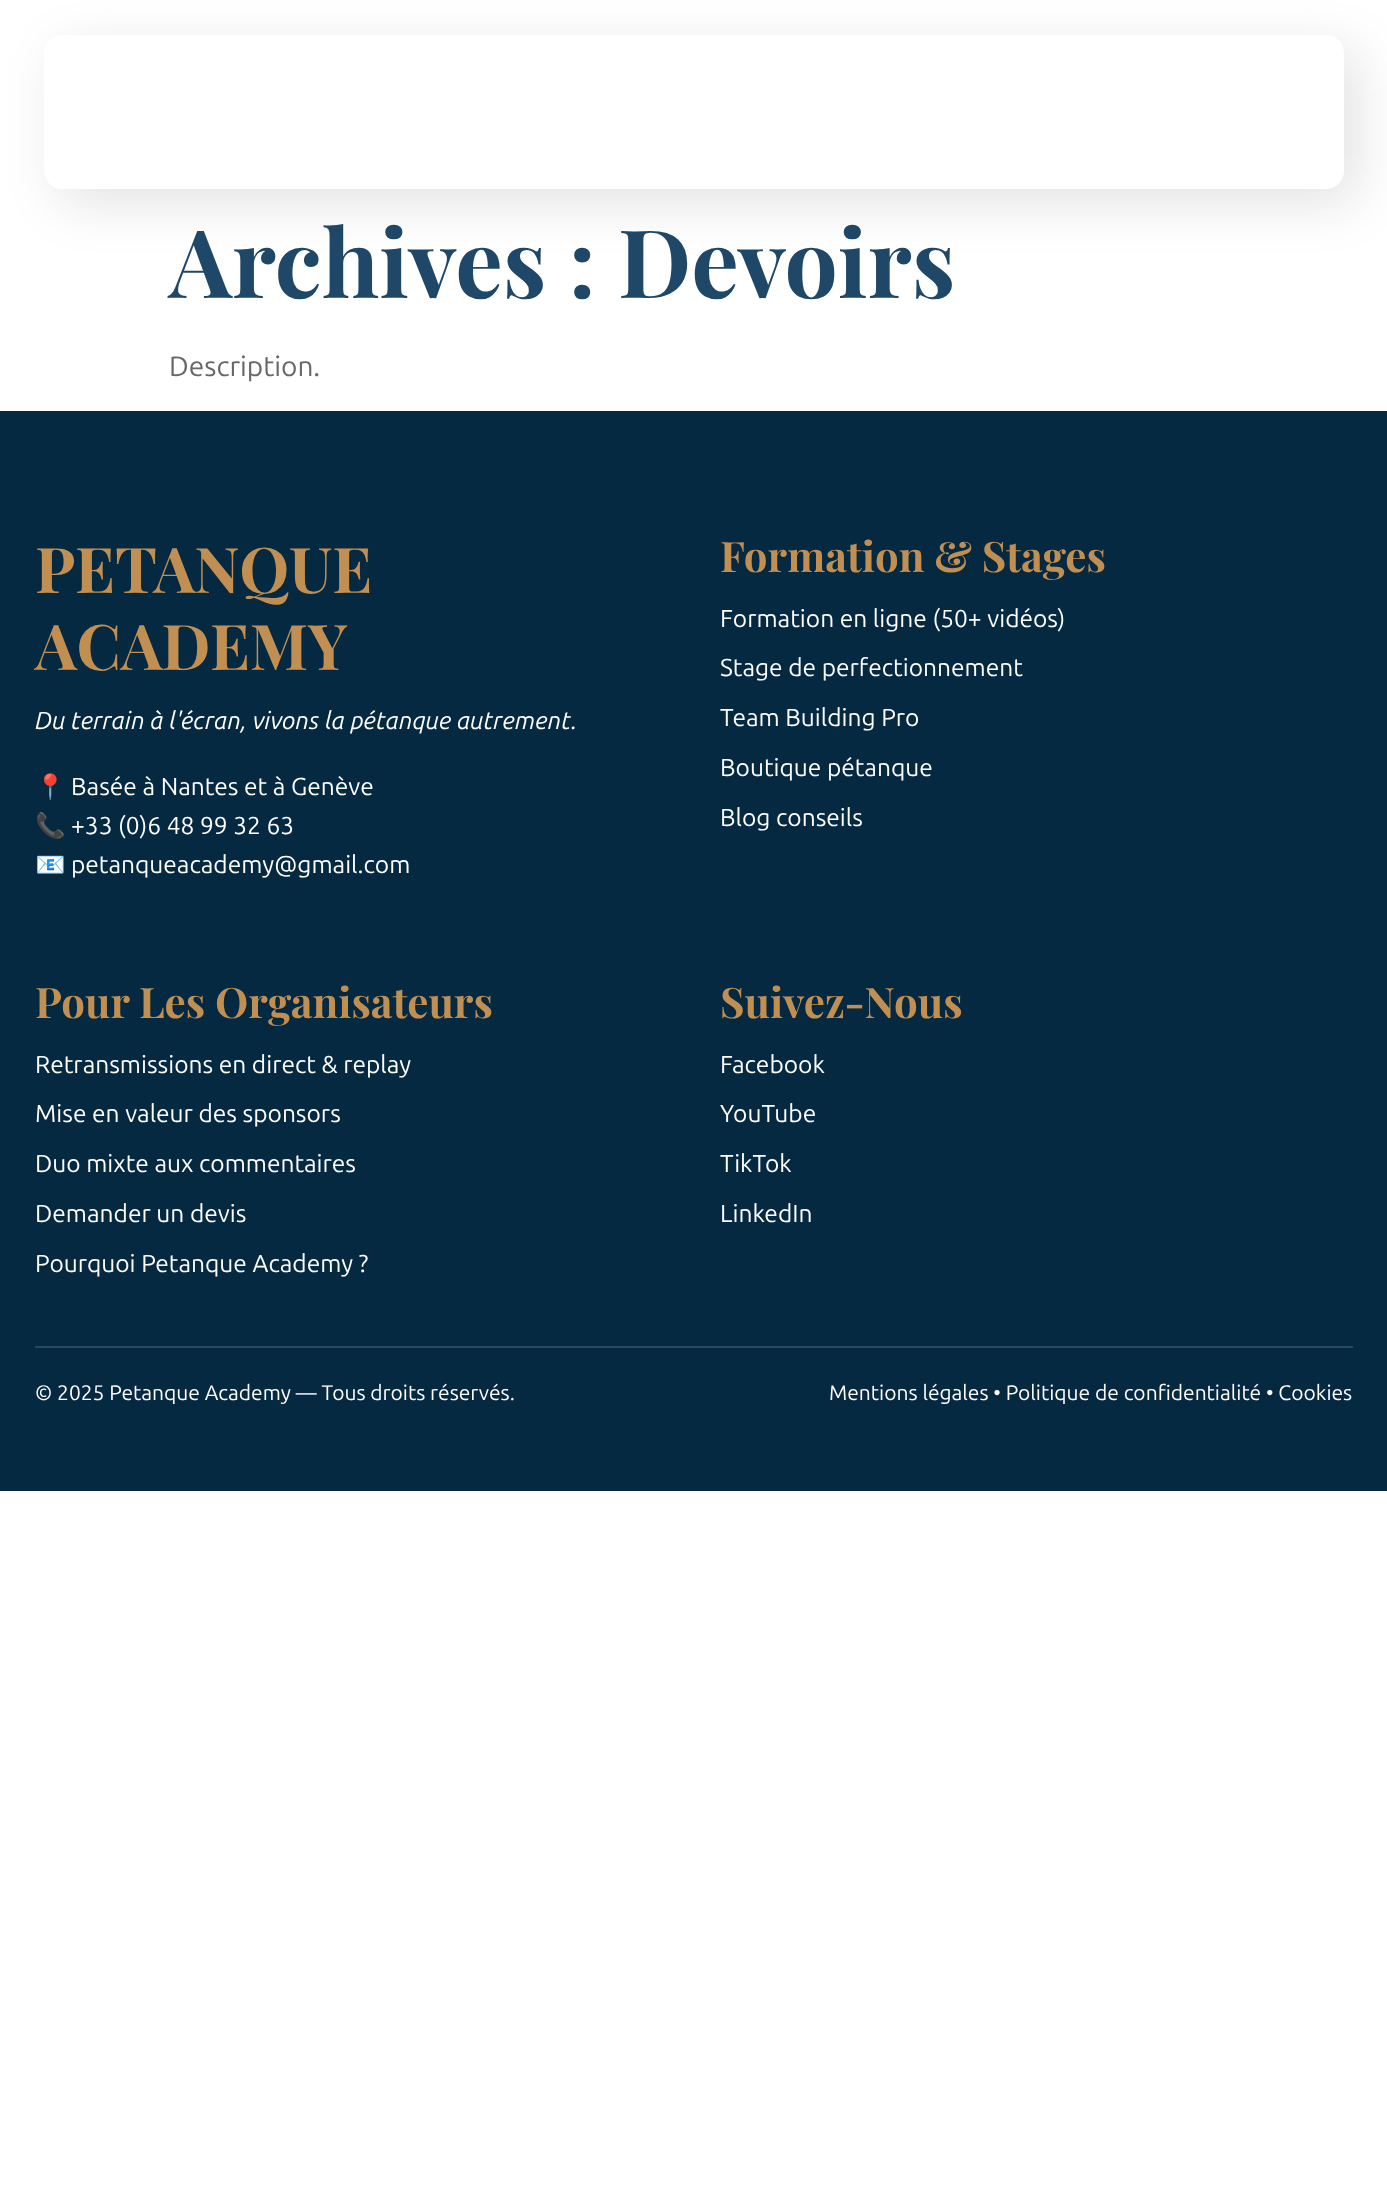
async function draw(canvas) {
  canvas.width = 1387
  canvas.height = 2192
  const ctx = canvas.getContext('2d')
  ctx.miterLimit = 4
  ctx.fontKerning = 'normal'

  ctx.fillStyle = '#fff'
  ctx.fillRect(0, 0, 1387, 2192)
  ctx.fillStyle = '#0000001c'
  ctx.filter = 'blur(26px)'
  ctx.beginPath()
  ctx.roundRect(58, 49, 1300, 154, 18)
  ctx.fill()
  ctx.filter = 'none'
  ctx.fillStyle = '#fff'
  ctx.beginPath()
  ctx.roundRect(44, 35, 1300, 154, 18)
  ctx.fill()
  ctx.font = 'bold 94.5px Playfair Display'
  ctx.fillStyle = '#1f4868'
  ctx.fillText('Archives : Devoirs', 169, 298)
  ctx.font = '28px Ubuntu'
  ctx.fillStyle = '#676767'
  ctx.fillText('Description.', 169, 376)
  ctx.fillStyle = '#052941'
  ctx.fillRect(0, 411, 1387, 1080)
  ctx.font = 'bold 63px Playfair Display'
  ctx.fillStyle = '#c08f51'
  ctx.fillText('PETANQUE', 35, 593)
  ctx.fillText('ACADEMY', 35, 670)
  ctx.font = 'italic 24.5px Ubuntu'
  ctx.fillStyle = '#fff'
  ctx.fillText('Du terrain à l\'écran, vivons la pétanque autrement.', 35, 729)
  ctx.font = '24.5px Noto Color Emoji'
  ctx.fillText('📍', 35, 795)
  ctx.font = '24.5px Ubuntu'
  ctx.fillText('Basée à Nantes et à Genève', 71, 795)
  ctx.font = '24.5px Noto Color Emoji'
  ctx.fillText('📞', 35, 834)
  ctx.font = '24.5px Ubuntu'
  ctx.fillText('+33 (0)6 48 99 32 63', 71, 834)
  ctx.font = '24.5px Noto Color Emoji'
  ctx.fillText('📧', 35, 873)
  ctx.font = '24.5px Ubuntu'
  ctx.fillText('petanqueacademy@gmail.com', 71, 873)
  ctx.font = 'bold 42px Playfair Display'
  ctx.fillStyle = '#c08f51'
  ctx.fillText('Formation & Stages', 720, 572)
  ctx.font = '24.5px Ubuntu'
  ctx.fillStyle = '#fff'
  ctx.fillText('Formation en ligne (50+ vidéos)', 720, 627)
  ctx.fillText('Stage de perfectionnement', 720, 676)
  ctx.fillText('Team Building Pro', 720, 726)
  ctx.fillText('Boutique pétanque', 720, 776)
  ctx.fillText('Blog conseils', 720, 826)
  ctx.font = 'bold 42px Playfair Display'
  ctx.fillStyle = '#c08f51'
  ctx.fillText('Pour Les Organisateurs', 35, 1018)
  ctx.font = '24.5px Ubuntu'
  ctx.fillStyle = '#fff'
  ctx.fillText('Retransmissions en direct & replay', 35, 1073)
  ctx.fillText('Mise en valeur des sponsors', 35, 1122)
  ctx.fillText('Duo mixte aux commentaires', 35, 1172)
  ctx.fillText('Demander un devis', 35, 1222)
  ctx.fillText('Pourquoi Petanque Academy ?', 35, 1272)
  ctx.font = 'bold 42px Playfair Display'
  ctx.fillStyle = '#c08f51'
  ctx.fillText('Suivez-Nous', 720, 1018)
  ctx.font = '24.5px Ubuntu'
  ctx.fillStyle = '#fff'
  ctx.fillText('Facebook', 720, 1073)
  ctx.fillText('YouTube', 720, 1122)
  ctx.fillText('TikTok', 720, 1172)
  ctx.fillText('LinkedIn', 720, 1222)
  ctx.fillStyle = '#2b495e'
  ctx.fillRect(35, 1346, 1318, 2)
  ctx.font = '21px Ubuntu'
  ctx.fillStyle = '#fff'
  ctx.fillText('© 2025 Petanque Academy — Tous droits réservés.', 35, 1400)
  ctx.fillText('Mentions légales • Politique de confidentialité • Cookies', 829, 1400)
}

draw(document.querySelector('canvas'))
